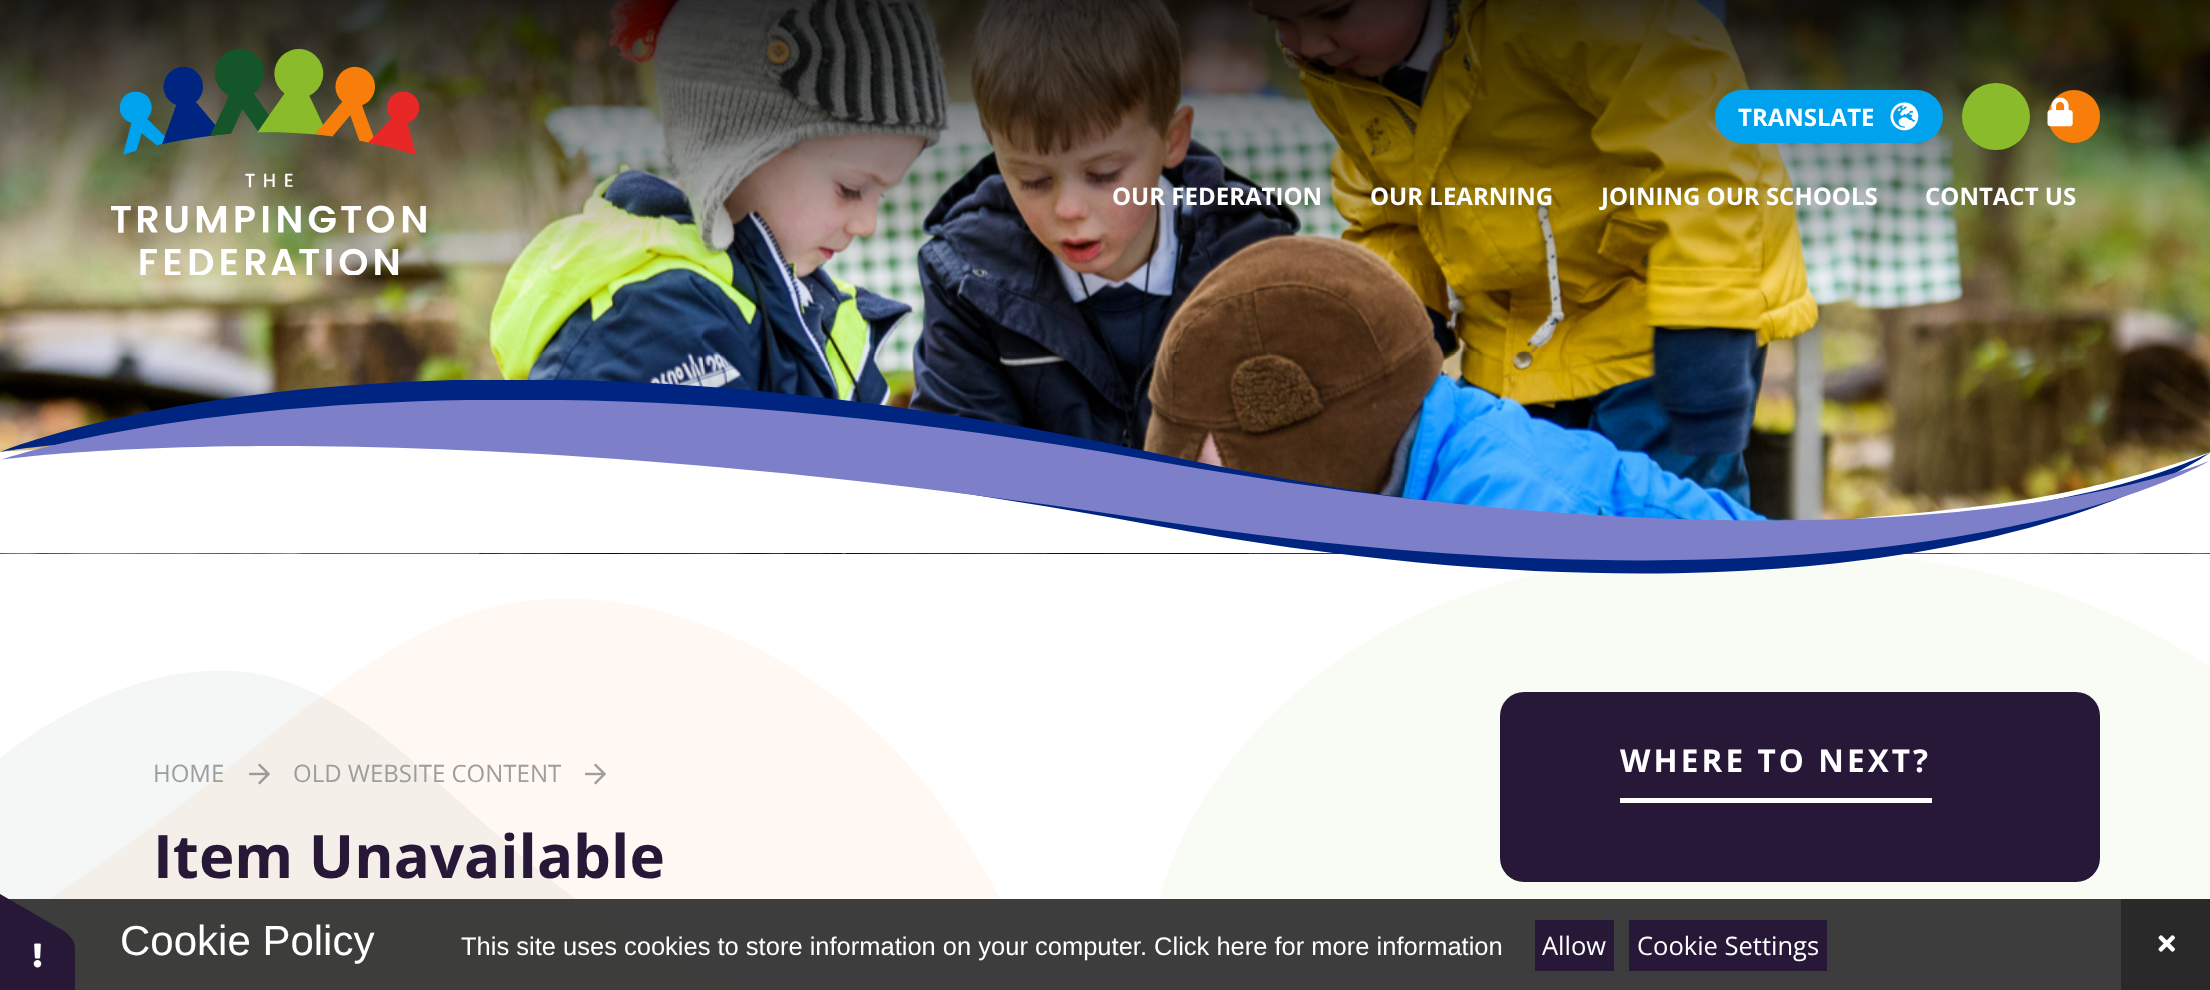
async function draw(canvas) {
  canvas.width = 2210
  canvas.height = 990
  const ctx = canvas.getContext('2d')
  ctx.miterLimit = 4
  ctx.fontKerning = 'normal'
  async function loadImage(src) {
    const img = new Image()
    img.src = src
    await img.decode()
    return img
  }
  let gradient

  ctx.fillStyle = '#fff'
  ctx.fillRect(0, 0, 2210, 990)
  gradient = ctx.createLinearGradient(1025, -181, 1186, 734)
  gradient.addColorStop(0, '#35204a')
  gradient.addColorStop(1, '#1b1026')
  ctx.fillStyle = gradient
  ctx.fillRect(0, 553, 2210, 1)
  ctx.fillStyle = '#8abb2a0d'
  ctx.beginPath()
  ctx.moveTo(2121, 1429)
  ctx.bezierCurveTo(2015, 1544, 1948, 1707, 1826, 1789)
  ctx.bezierCurveTo(1755, 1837, 1665, 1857, 1582, 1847)
  ctx.lineTo(1545, 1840)
  ctx.bezierCurveTo(1500, 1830, 1458, 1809, 1424, 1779)
  ctx.bezierCurveTo(1320, 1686, 1290, 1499, 1244, 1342)
  ctx.bezierCurveTo(1233, 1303, 1220, 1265, 1208, 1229)
  ctx.bezierCurveTo(1172, 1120, 1141, 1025, 1153, 935)
  ctx.bezierCurveTo(1168, 815, 1261, 705, 1367, 641)
  ctx.bezierCurveTo(1473, 577, 1591, 559, 1704, 553)
  ctx.bezierCurveTo(1817, 547, 1923, 552, 2033, 585)
  ctx.bezierCurveTo(2144, 619, 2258, 681, 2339, 785)
  ctx.bezierCurveTo(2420, 888, 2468, 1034, 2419, 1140)
  ctx.bezierCurveTo(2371, 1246, 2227, 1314, 2121, 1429)
  ctx.closePath()
  ctx.fill()
  ctx.drawImage(await loadImage('image0.png'), 0, 0, 2210, 554)
  ctx.fillStyle = '#fff'
  ctx.beginPath()
  ctx.moveTo(0, 452)
  ctx.bezierCurveTo(0, 452, 251, 434, 533, 439)
  ctx.bezierCurveTo(815, 444, 1023, 457, 1127, 473)
  ctx.bezierCurveTo(1232, 490, 1447, 525, 1532, 532)
  ctx.bezierCurveTo(1617, 540, 1915, 517, 2018, 501)
  ctx.bezierCurveTo(2121, 485, 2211, 452, 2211, 452)
  ctx.lineTo(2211, 553)
  ctx.lineTo(0, 553)
  ctx.closePath()
  ctx.fill()
  ctx.fillStyle = '#002581'
  ctx.beginPath()
  ctx.moveTo(0, 452)
  ctx.bezierCurveTo(0, 452, 379, 384, 1152, 525)
  ctx.bezierCurveTo(1925, 667, 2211, 452, 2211, 452)
  ctx.bezierCurveTo(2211, 452, 1910, 616, 1150, 452)
  ctx.bezierCurveTo(926, 404, 735, 384, 576, 380)
  ctx.lineTo(454, 380)
  ctx.bezierCurveTo(153, 388, 0, 452, 0, 452)
  ctx.closePath()
  ctx.fill()
  ctx.fillStyle = '#7d7fc9'
  ctx.beginPath()
  ctx.moveTo(0, 460)
  ctx.bezierCurveTo(0, 460, 379, 403, 1152, 520)
  ctx.bezierCurveTo(1925, 638, 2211, 460, 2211, 460)
  ctx.bezierCurveTo(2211, 460, 1910, 596, 1150, 460)
  ctx.bezierCurveTo(919, 419, 722, 402, 560, 400)
  ctx.lineTo(469, 400)
  ctx.bezierCurveTo(158, 405, 0, 460, 0, 460)
  ctx.closePath()
  ctx.fill()
  ctx.drawImage(await loadImage('image1.png'), 111, 49, 315, 226)
  ctx.fillStyle = '#00a1ed'
  ctx.beginPath()
  ctx.roundRect(1715, 90, 228, 53, 26.5)
  ctx.fill()
  ctx.font = 'bold 24px Open Sans'
  ctx.fillStyle = '#fff'
  ctx.fillText('TRANSLATE', 1738, 126)
  ctx.drawImage(await loadImage('image2.png'), 1890, 102, 29, 29)
  ctx.fillStyle = '#8abb2a'
  ctx.beginPath()
  ctx.roundRect(1962, 83, 68, 67, 33.5)
  ctx.fill()
  ctx.fillStyle = '#f77e0b'
  ctx.beginPath()
  ctx.roundRect(2048, 90, 52, 53, 26)
  ctx.fill()
  ctx.drawImage(await loadImage('image3.png'), 2047, 97, 26, 30)
  ctx.fillStyle = '#fff'
  ctx.fillText('OUR FEDERATION', 1112, 205)
  ctx.fillText('OUR LEARNING', 1370, 205)
  ctx.fillText('JOINING OUR SCHOOLS', 1601, 205)
  ctx.fillText('CONTACT US', 1925, 205)
  ctx.save()
  ctx.beginPath()
  ctx.rect(0, 671, 1115, 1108)
  ctx.clip()
  ctx.fillStyle = '#f4f7f5'
  ctx.beginPath()
  ctx.moveTo(608, 921)
  ctx.bezierCurveTo(740, 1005, 912, 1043, 1014, 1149)
  ctx.bezierCurveTo(1116, 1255, 1148, 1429, 1074, 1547)
  ctx.bezierCurveTo(1001, 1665, 822, 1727, 675, 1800)
  ctx.bezierCurveTo(528, 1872, 411, 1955, 290, 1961)
  ctx.bezierCurveTo(170, 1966, 45, 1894, -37, 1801)
  ctx.bezierCurveTo(-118, 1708, -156, 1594, -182, 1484)
  ctx.bezierCurveTo(-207, 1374, -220, 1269, -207, 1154)
  ctx.bezierCurveTo(-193, 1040, -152, 916, -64, 818)
  ctx.bezierCurveTo(24, 720, 159, 648, 272, 677)
  ctx.bezierCurveTo(385, 707, 477, 836, 608, 921)
  ctx.fill()
  ctx.restore()
  ctx.fillStyle = '#f77e0b0d'
  ctx.beginPath()
  ctx.moveTo(365, 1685)
  ctx.bezierCurveTo(220, 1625, 44, 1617, -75, 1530)
  ctx.bezierCurveTo(-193, 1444, -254, 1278, -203, 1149)
  ctx.bezierCurveTo(-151, 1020, 14, 928, 146, 831)
  ctx.bezierCurveTo(279, 734, 379, 632, 498, 606)
  ctx.bezierCurveTo(615, 579, 751, 629, 847, 706)
  ctx.bezierCurveTo(943, 784, 1001, 889, 1045, 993)
  ctx.bezierCurveTo(1075, 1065, 1100, 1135, 1114, 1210)
  ctx.lineTo(1118, 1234)
  ctx.bezierCurveTo(1123, 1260, 1126, 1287, 1127, 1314)
  ctx.bezierCurveTo(1133, 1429, 1114, 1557, 1044, 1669)
  ctx.bezierCurveTo(986, 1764, 890, 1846, 791, 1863)
  ctx.bezierCurveTo(773, 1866, 756, 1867, 738, 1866)
  ctx.bezierCurveTo(621, 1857, 509, 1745, 365, 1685)
  ctx.closePath()
  ctx.fill()
  ctx.fillStyle = '#281838'
  ctx.beginPath()
  ctx.roundRect(1500, 692, 600, 190, 24)
  ctx.fill()
  ctx.fillStyle = '#fff'
  ctx.fillRect(1620, 798, 312, 5)
  ctx.letterSpacing = '3.1px'
  ctx.font = 'bold 31.5px Open Sans'
  ctx.fillText('WHERE TO NEXT?', 1620, 772)
  ctx.letterSpacing = '0px'
  ctx.font = '24px Open Sans'
  ctx.fillStyle = '#9c9d9c'
  ctx.fillText('HOME', 153, 782)
  ctx.drawImage(await loadImage('image4.png'), 249, 763, 21, 22)
  ctx.fillText('OLD WEBSITE CONTENT', 293, 782)
  ctx.drawImage(await loadImage('image5.png'), 585, 763, 21, 22)
  ctx.font = 'bold 60px Open Sans'
  ctx.fillStyle = '#281838'
  ctx.fillText('Item Unavailable', 153, 878)
  ctx.fillStyle = '#333333f2'
  ctx.fillRect(8, 899, 2113, 91)
  ctx.fillStyle = '#281838'
  ctx.beginPath()
  ctx.moveTo(75, 949)
  ctx.lineTo(75, 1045)
  ctx.bezierCurveTo(75, 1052, 72, 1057, 69, 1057)
  ctx.lineTo(-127, 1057)
  ctx.bezierCurveTo(-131, 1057, -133, 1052, -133, 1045)
  ctx.lineTo(-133, 949)
  ctx.bezierCurveTo(-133, 943, -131, 937, -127, 937)
  ctx.lineTo(69, 937)
  ctx.bezierCurveTo(72, 937, 75, 943, 75, 949)
  ctx.closePath()
  ctx.fill()
  ctx.beginPath()
  ctx.moveTo(-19, 883)
  ctx.lineTo(64, 931)
  ctx.bezierCurveTo(70, 935, 73, 940, 72, 943)
  ctx.lineTo(-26, 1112)
  ctx.bezierCurveTo(-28, 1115, -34, 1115, -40, 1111)
  ctx.lineTo(-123, 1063)
  ctx.bezierCurveTo(-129, 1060, -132, 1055, -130, 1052)
  ctx.lineTo(-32, 883)
  ctx.bezierCurveTo(-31, 880, -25, 880, -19, 883)
  ctx.closePath()
  ctx.fill()
  ctx.drawImage(await loadImage('image6.png'), 33, 943, 9, 25)
  ctx.font = '42px Liberation Sans'
  ctx.fillStyle = '#fff'
  ctx.fillText('Cookie Policy', 120, 955)
  ctx.font = '25.5px Liberation Sans'
  ctx.fillText('This site uses cookies to store information on your computer. Click here for more information', 461, 955)
  ctx.fillStyle = '#281838'
  ctx.fillRect(1535, 920, 79, 51)
  ctx.font = '25.5px Open Sans'
  ctx.fillStyle = '#fff'
  ctx.fillText('Allow', 1542, 955)
  ctx.fillStyle = '#281838'
  ctx.fillRect(1629, 920, 198, 51)
  ctx.fillStyle = '#fff'
  ctx.fillText('Cookie Settings', 1637, 955)
  ctx.fillStyle = '#292929'
  ctx.fillRect(2121, 899, 89, 91)
  ctx.drawImage(await loadImage('image7.png'), 2158, 935, 17, 17)
}

draw(document.querySelector('canvas'))
